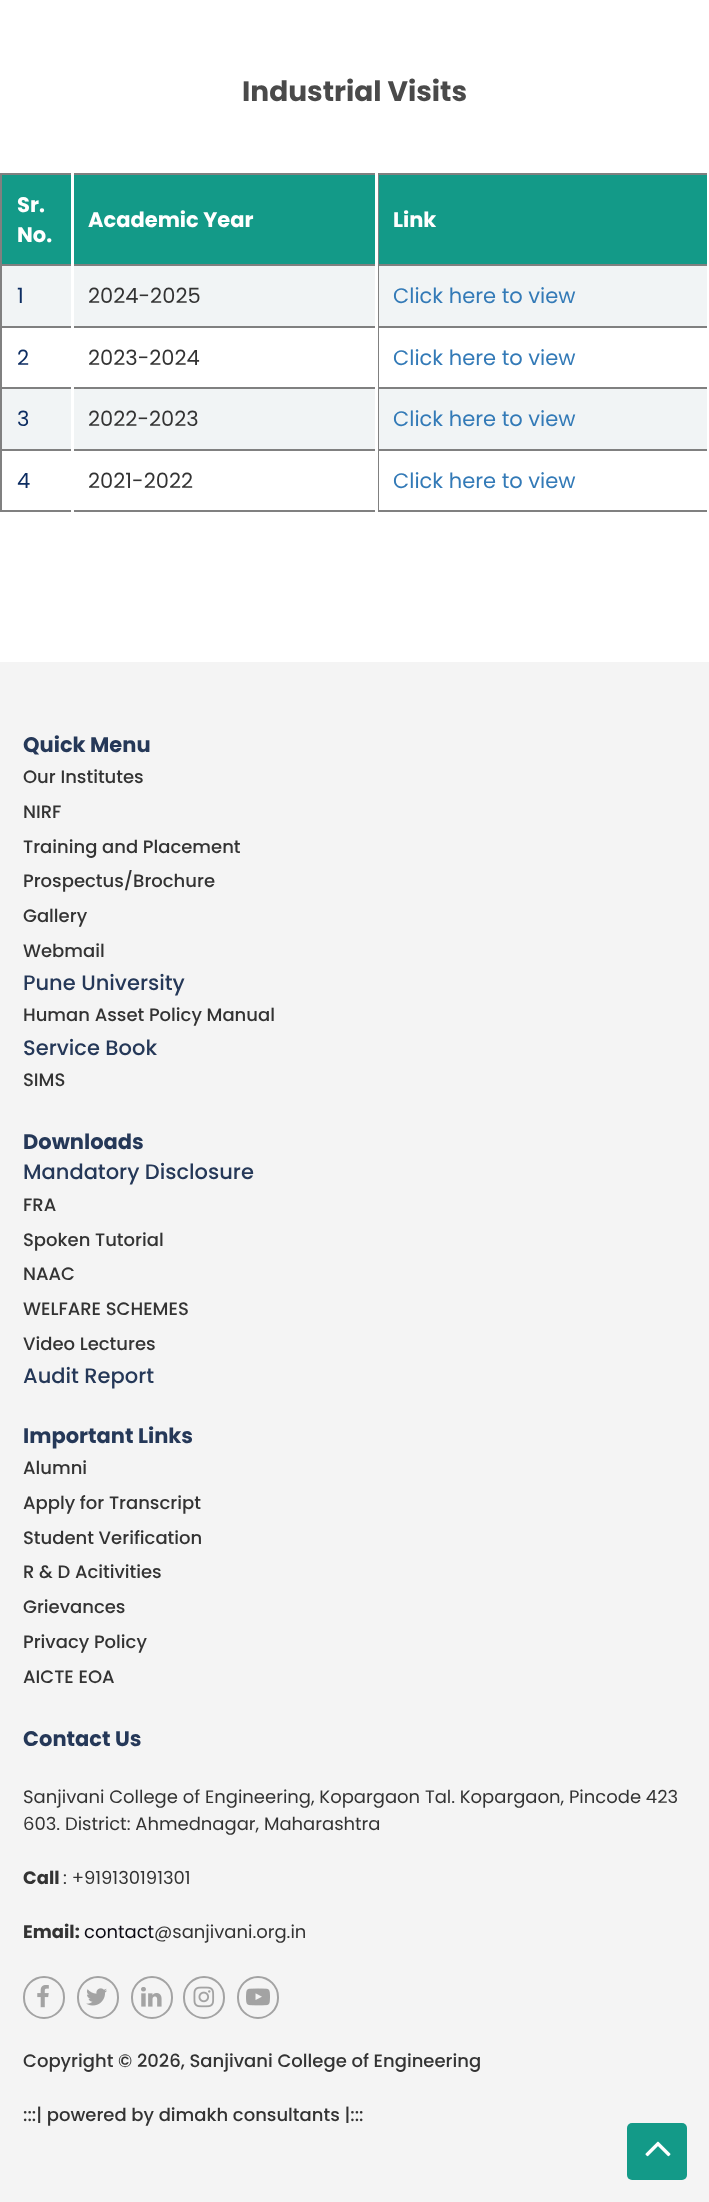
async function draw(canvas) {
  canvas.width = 709
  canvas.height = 2202
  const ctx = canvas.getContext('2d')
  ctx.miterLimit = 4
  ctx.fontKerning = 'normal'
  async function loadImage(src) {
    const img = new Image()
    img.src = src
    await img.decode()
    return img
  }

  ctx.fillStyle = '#fff'
  ctx.fillRect(0, 0, 709, 2202)
  ctx.font = 'bold 28px Poppins'
  ctx.fillStyle = '#4a4a4a'
  ctx.fillText('Industrial Visits', 242, 101)
  ctx.fillStyle = '#808080'
  ctx.fillRect(0, 173, 709, 2)
  ctx.fillRect(0, 510, 709, 2)
  ctx.fillRect(0, 173, 2, 339)
  ctx.fillStyle = '#139a88'
  ctx.fillRect(2, 175, 69, 89)
  ctx.fillStyle = '#fff'
  ctx.fillRect(71, 173, 3, 2)
  ctx.font = 'bold 21px Poppins'
  ctx.fillText('Sr.', 17, 212)
  ctx.fillText('No.', 17, 242)
  ctx.fillStyle = '#139a88'
  ctx.fillRect(74, 175, 301, 89)
  ctx.fillStyle = '#fff'
  ctx.fillRect(375, 173, 3, 2)
  ctx.fillText('Academic Year', 88, 227)
  ctx.fillStyle = '#139a88'
  ctx.fillRect(379, 175, 328, 89)
  ctx.fillStyle = '#fff'
  ctx.fillRect(707, 173, 2, 2)
  ctx.fillText('Link', 393, 227)
  ctx.fillStyle = '#f1f4f5'
  ctx.fillRect(2, 266, 705, 60)
  ctx.font = '21px Poppins'
  ctx.fillStyle = '#0d2d62'
  ctx.fillText('1', 17, 303)
  ctx.fillStyle = '#333'
  ctx.fillText('2024-2025', 88, 303)
  ctx.fillStyle = '#808080'
  ctx.fillRect(0, 264, 709, 2)
  ctx.fillRect(0, 326, 709, 2)
  ctx.fillRect(0, 387, 709, 2)
  ctx.fillStyle = '#f1f4f5'
  ctx.fillRect(2, 389, 705, 60)
  ctx.fillStyle = '#808080'
  ctx.fillRect(0, 449, 709, 2)
  ctx.fillRect(378, 449, 1, 63)
  ctx.fillRect(378, 387, 1, 63)
  ctx.fillRect(378, 326, 1, 63)
  ctx.fillRect(378, 173, 1, 154)
  ctx.fillStyle = '#fff'
  ctx.fillRect(707, 264, 2, 2)
  ctx.fillStyle = '#337ab7'
  ctx.fillText('Click here to view', 393, 303)
  ctx.fillStyle = '#fff'
  ctx.fillRect(71, 264, 3, 65)
  ctx.fillStyle = '#0d2d62'
  ctx.fillText('2', 17, 365)
  ctx.fillStyle = '#fff'
  ctx.fillRect(375, 264, 3, 65)
  ctx.fillStyle = '#333'
  ctx.fillText('2023-2024', 88, 365)
  ctx.fillStyle = '#fff'
  ctx.fillRect(707, 326, 2, 2)
  ctx.fillStyle = '#337ab7'
  ctx.fillText('Click here to view', 393, 365)
  ctx.fillStyle = '#0d2d62'
  ctx.fillText('3', 17, 426)
  ctx.fillStyle = '#333'
  ctx.fillText('2022-2023', 88, 426)
  ctx.fillStyle = '#fff'
  ctx.fillRect(707, 387, 2, 2)
  ctx.fillStyle = '#337ab7'
  ctx.fillText('Click here to view', 393, 426)
  ctx.fillStyle = '#fff'
  ctx.fillRect(71, 387, 3, 126)
  ctx.fillStyle = '#0d2d62'
  ctx.fillText('4', 17, 488)
  ctx.fillStyle = '#fff'
  ctx.fillRect(375, 387, 3, 126)
  ctx.fillStyle = '#333'
  ctx.fillText('2021-2022', 88, 488)
  ctx.fillStyle = '#fff'
  ctx.fillRect(707, 449, 2, 64)
  ctx.fillStyle = '#337ab7'
  ctx.fillText('Click here to view', 393, 488)
  ctx.fillStyle = '#f4f4f4'
  ctx.fillRect(0, 662, 709, 1540)
  ctx.font = 'bold 21px Poppins'
  ctx.fillStyle = '#253858'
  ctx.fillText('Quick Menu', 23, 752)
  ctx.font = '500 18px Poppins'
  ctx.fillStyle = '#333'
  ctx.fillText('Our Institutes', 23, 783)
  ctx.fillText('NIRF', 23, 818)
  ctx.fillText('Training and Placement', 23, 853)
  ctx.fillText('Prospectus/Brochure', 23, 887)
  ctx.fillText('Gallery', 23, 922)
  ctx.fillText('Webmail', 23, 957)
  ctx.font = '500 21px Poppins'
  ctx.fillStyle = '#253858'
  ctx.fillText('Pune University', 23, 990)
  ctx.font = '500 18px Poppins'
  ctx.fillStyle = '#333'
  ctx.fillText('Human Asset Policy Manual', 23, 1021)
  ctx.font = '500 21px Poppins'
  ctx.fillStyle = '#253858'
  ctx.fillText('Service Book', 23, 1055)
  ctx.font = '500 18px Poppins'
  ctx.fillStyle = '#333'
  ctx.fillText('SIMS', 23, 1086)
  ctx.font = 'bold 21px Poppins'
  ctx.fillStyle = '#253858'
  ctx.fillText('Downloads', 23, 1149)
  ctx.font = '500 21px Poppins'
  ctx.fillText('Mandatory Disclosure', 23, 1179)
  ctx.font = '500 18px Poppins'
  ctx.fillStyle = '#333'
  ctx.fillText('FRA', 23, 1211)
  ctx.fillText('Spoken Tutorial', 23, 1246)
  ctx.fillText('NAAC', 23, 1280)
  ctx.fillText('WELFARE SCHEMES', 23, 1315)
  ctx.fillText('Video Lectures', 23, 1350)
  ctx.font = '500 21px Poppins'
  ctx.fillStyle = '#253858'
  ctx.fillText('Audit Report', 23, 1383)
  ctx.font = 'bold 21px Poppins'
  ctx.fillText('Important Links', 23, 1443)
  ctx.font = '500 18px Poppins'
  ctx.fillStyle = '#333'
  ctx.fillText('Alumni', 23, 1474)
  ctx.fillText('Apply for Transcript', 23, 1509)
  ctx.fillText('Student Verification', 23, 1544)
  ctx.fillText('R & D Acitivities', 23, 1578)
  ctx.fillText('Grievances', 23, 1613)
  ctx.fillText('Privacy Policy', 23, 1648)
  ctx.fillText('AICTE EOA', 23, 1683)
  ctx.font = 'bold 21px Poppins'
  ctx.fillStyle = '#253858'
  ctx.fillText('Contact Us', 23, 1746)
  ctx.font = '18px Poppins'
  ctx.fillStyle = '#333'
  ctx.fillText('Sanjivani College of Engineering, Kopargaon Tal. Kopargaon, Pincode 423', 23, 1803)
  ctx.fillText('603. District: Ahmednagar, Maharashtra', 23, 1830)
  ctx.font = 'bold 18px Poppins'
  ctx.fillText('Call', 23, 1884)
  ctx.font = '18px Poppins'
  ctx.fillText(': +919130191301', 63, 1884)
  ctx.font = 'bold 18px Poppins'
  ctx.fillText('Email:', 23, 1938)
  ctx.font = '18px Poppins'
  ctx.fillStyle = '#0b0914'
  ctx.fillText('contact', 84, 1938)
  ctx.fillStyle = '#333'
  ctx.fillText('@sanjivani.org.in', 154, 1938)
  ctx.beginPath()
  ctx.roundRect(24, 1977, 40, 41, 20)
  ctx.strokeStyle = '#a3a3a3'
  ctx.lineWidth = 2
  ctx.stroke()
  ctx.drawImage(await loadImage('image0.png'), 37, 1985, 12, 23)
  ctx.beginPath()
  ctx.roundRect(78, 1977, 40, 41, 20)
  ctx.stroke()
  ctx.drawImage(await loadImage('image1.png'), 86, 1988, 21, 18)
  ctx.beginPath()
  ctx.roundRect(132, 1977, 40, 41, 20)
  ctx.stroke()
  ctx.drawImage(await loadImage('image2.png'), 141, 1987, 21, 20)
  ctx.beginPath()
  ctx.roundRect(184, 1977, 40, 41, 20)
  ctx.stroke()
  ctx.drawImage(await loadImage('image3.png'), 193, 1986, 22, 22)
  ctx.beginPath()
  ctx.roundRect(238, 1977, 40, 41, 20)
  ctx.stroke()
  ctx.drawImage(await loadImage('image4.png'), 246, 1988, 24, 18)
  ctx.font = '500 18px Poppins'
  ctx.fillText('Copyright © 2026, Sanjivani College of Engineering', 23, 2067)
  ctx.fillText(':::| powered by dimakh consultants |:::', 23, 2121)
  ctx.fillStyle = '#139a88'
  ctx.beginPath()
  ctx.roundRect(627, 2123, 60, 57, 5)
  ctx.fill()
  ctx.drawImage(await loadImage('image5.png'), 645, 2141, 26, 16)
}

draw(document.querySelector('canvas'))
